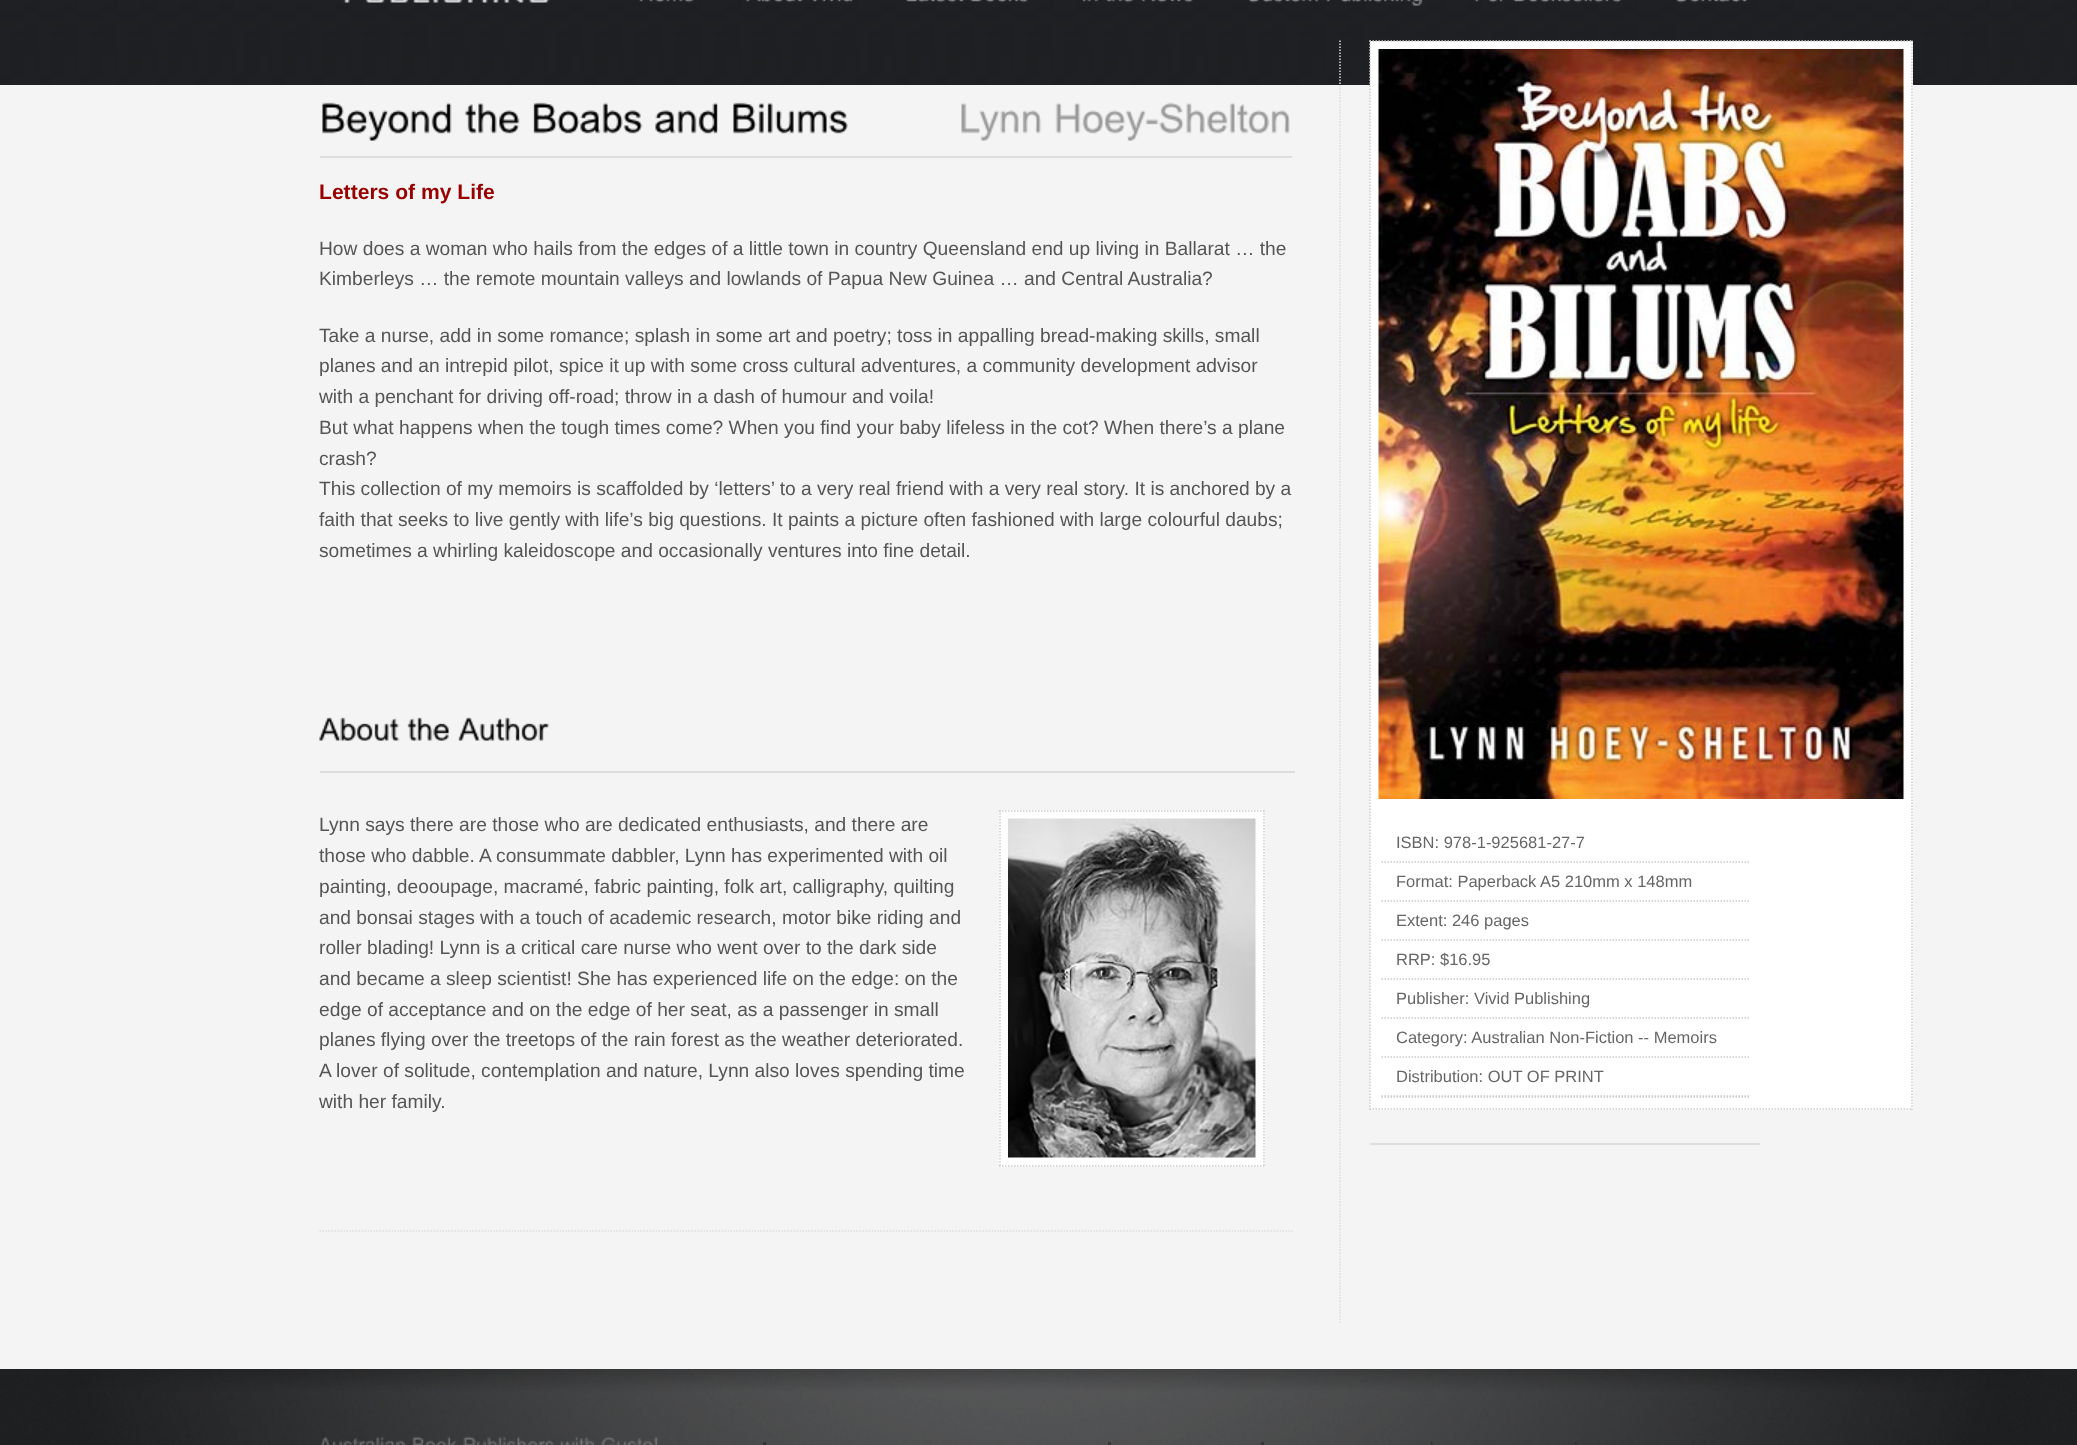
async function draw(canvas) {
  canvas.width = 2077
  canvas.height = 1445
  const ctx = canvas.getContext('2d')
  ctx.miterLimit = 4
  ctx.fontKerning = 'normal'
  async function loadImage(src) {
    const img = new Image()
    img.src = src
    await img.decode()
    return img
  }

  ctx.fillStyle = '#f4f4f4'
  ctx.fillRect(0, 0, 2077, 1445)
  ctx.drawImage(await loadImage('image0.png'), 0, 0, 2077, 85)
  ctx.drawImage(await loadImage('image1.png'), 343, 0, 207, 3)
  ctx.drawImage(await loadImage('image2.png'), 639, 0, 55, 3)
  ctx.drawImage(await loadImage('image3.png'), 745, 0, 58, 3)
  ctx.drawImage(await loadImage('image4.png'), 812, 0, 41, 3)
  ctx.drawImage(await loadImage('image5.png'), 905, 0, 59, 3)
  ctx.drawImage(await loadImage('image6.png'), 970, 0, 58, 3)
  ctx.drawImage(await loadImage('image7.png'), 1082, 0, 17, 2)
  ctx.drawImage(await loadImage('image8.png'), 1106, 0, 27, 3)
  ctx.drawImage(await loadImage('image9.png'), 1141, 0, 52, 3)
  ctx.drawImage(await loadImage('image10.png'), 1249, 0, 70, 3)
  ctx.drawImage(await loadImage('image11.png'), 1326, 0, 97, 6)
  ctx.drawImage(await loadImage('image12.png'), 1474, 0, 30, 3)
  ctx.drawImage(await loadImage('image13.png'), 1513, 0, 109, 3)
  ctx.drawImage(await loadImage('image14.png'), 1676, 0, 71, 3)
  ctx.beginPath()
  ctx.moveTo(1340, 40.5)
  ctx.lineTo(1340, 1324.5)
  ctx.strokeStyle = '#ddd'
  ctx.lineWidth = 1.5
  ctx.setLineDash([1.5, 1.5])
  ctx.stroke()
  ctx.beginPath()
  ctx.moveTo(319.5, 1231)
  ctx.lineTo(1294.5, 1231)
  ctx.stroke()
  ctx.fillStyle = '#ddd'
  ctx.fillRect(320, 156, 972, 2)
  ctx.drawImage(await loadImage('image15.png'), 322, 102, 130, 39)
  ctx.drawImage(await loadImage('image16.png'), 464, 102, 56, 32)
  ctx.drawImage(await loadImage('image17.png'), 533, 102, 110, 32)
  ctx.drawImage(await loadImage('image18.png'), 655, 102, 63, 32)
  ctx.drawImage(await loadImage('image19.png'), 733, 102, 115, 32)
  ctx.drawImage(await loadImage('image20.png'), 961, 103, 81, 38)
  ctx.drawImage(await loadImage('image21.png'), 1055, 102, 235, 39)
  ctx.font = 'bold 21.1px Liberation Sans'
  ctx.fillStyle = '#900'
  ctx.fillText('Letters of my Life', 319, 199)
  ctx.font = '19.2px Liberation Sans'
  ctx.fillStyle = '#555'
  ctx.fillText('How does a woman who hails from the edges of a little town in country Queensland end up living in Ballarat … the', 319, 255)
  ctx.fillText('Kimberleys … the remote mountain valleys and lowlands of Papua New Guinea … and Central Australia?', 319, 285)
  ctx.fillText('Take a nurse, add in some romance; splash in some art and poetry; toss in appalling bread-making skills, small', 319, 342)
  ctx.fillText('planes and an intrepid pilot, spice it up with some cross cultural adventures, a community development advisor', 319, 372)
  ctx.fillText('with a penchant for driving off-road; throw in a dash of humour and voila!', 319, 403)
  ctx.fillText('But what happens when the tough times come? When you ﬁnd your baby lifeless in the cot? When there’s a plane', 319, 434)
  ctx.fillText('crash?', 319, 465)
  ctx.fillText('This collection of my memoirs is scaffolded by ‘letters’ to a very real friend with a very real story. It is anchored by a', 319, 495)
  ctx.fillText('faith that seeks to live gently with life’s big questions. It paints a picture often fashioned with large colourful daubs;', 319, 526)
  ctx.fillText('sometimes a whirling kaleidoscope and occasionally ventures into ﬁne detail.', 319, 557)
  ctx.fillStyle = '#ddd'
  ctx.fillRect(320, 771, 975, 2)
  ctx.drawImage(await loadImage('image22.png'), 319, 717, 81, 24)
  ctx.drawImage(await loadImage('image23.png'), 407, 717, 43, 24)
  ctx.drawImage(await loadImage('image24.png'), 458, 717, 92, 24)
  ctx.fillStyle = '#555'
  ctx.fillText('Lynn says there are those who are dedicated enthusiasts, and there are', 319, 831)
  ctx.fillText('those who dabble. A consummate dabbler, Lynn has experimented with oil', 319, 862)
  ctx.fillText('painting, deooupage, macramé, fabric painting, folk art, calligraphy, quilting', 319, 893)
  ctx.fillText('and bonsai stages with a touch of academic research, motor bike riding and', 319, 924)
  ctx.fillText('roller blading! Lynn is a critical care nurse who went over to the dark side', 319, 954)
  ctx.fillText('and became a sleep scientist! She has experienced life on the edge: on the', 319, 985)
  ctx.fillText('edge of acceptance and on the edge of her seat, as a passenger in small', 319, 1016)
  ctx.fillText('planes ﬂying over the treetops of the rain forest as the weather deteriorated.', 319, 1046)
  ctx.fillText('A lover of solitude, contemplation and nature, Lynn also loves spending time', 319, 1077)
  ctx.fillText('with her family.', 319, 1108)
  ctx.fillStyle = '#fff'
  ctx.fillRect(999, 810, 266, 357)
  ctx.beginPath()
  ctx.moveTo(999, 811)
  ctx.lineTo(1264.5, 811)
  ctx.strokeStyle = '#ccc'
  ctx.stroke()
  ctx.beginPath()
  ctx.moveTo(1264, 810)
  ctx.lineTo(1264, 1167)
  ctx.stroke()
  ctx.beginPath()
  ctx.moveTo(999, 1166)
  ctx.lineTo(1264.5, 1166)
  ctx.stroke()
  ctx.beginPath()
  ctx.moveTo(1000, 810)
  ctx.lineTo(1000, 1167)
  ctx.stroke()
  ctx.drawImage(await loadImage('image25.png'), 1008, 818, 248, 340)
  ctx.fillRect(1370, 41, 543, 1069)
  ctx.beginPath()
  ctx.moveTo(1369.5, 41)
  ctx.lineTo(1912.5, 41)
  ctx.stroke()
  ctx.beginPath()
  ctx.moveTo(1912, 40.5)
  ctx.lineTo(1912, 1110)
  ctx.stroke()
  ctx.beginPath()
  ctx.moveTo(1369.5, 1109)
  ctx.lineTo(1912.5, 1109)
  ctx.stroke()
  ctx.beginPath()
  ctx.moveTo(1370, 40.5)
  ctx.lineTo(1370, 1110)
  ctx.stroke()
  ctx.drawImage(await loadImage('image26.png'), 1378, 49, 526, 750)
  ctx.beginPath()
  ctx.moveTo(1381.5, 862)
  ctx.lineTo(1750.5, 862)
  ctx.stroke()
  ctx.font = '16.5px Liberation Sans'
  ctx.fillStyle = '#666'
  ctx.fillText('ISBN: 978-1-925681-27-7', 1396, 848)
  ctx.beginPath()
  ctx.moveTo(1381.5, 901)
  ctx.lineTo(1750.5, 901)
  ctx.stroke()
  ctx.fillText('Format: Paperback A5 210mm x 148mm', 1396, 887)
  ctx.beginPath()
  ctx.moveTo(1381.5, 940)
  ctx.lineTo(1750.5, 940)
  ctx.stroke()
  ctx.fillText('Extent: 246 pages', 1396, 926)
  ctx.beginPath()
  ctx.moveTo(1381.5, 979)
  ctx.lineTo(1750.5, 979)
  ctx.stroke()
  ctx.fillText('RRP: $16.95', 1396, 965)
  ctx.beginPath()
  ctx.moveTo(1381.5, 1018)
  ctx.lineTo(1750.5, 1018)
  ctx.stroke()
  ctx.fillText('Publisher: Vivid Publishing', 1396, 1004)
  ctx.beginPath()
  ctx.moveTo(1381.5, 1057)
  ctx.lineTo(1750.5, 1057)
  ctx.stroke()
  ctx.fillText('Category: Australian Non-Fiction -- Memoirs', 1396, 1043)
  ctx.beginPath()
  ctx.moveTo(1381.5, 1096)
  ctx.lineTo(1750.5, 1096)
  ctx.stroke()
  ctx.fillText('Distribution: OUT OF PRINT', 1396, 1082)
  ctx.beginPath()
  ctx.moveTo(1381.5, 1097)
  ctx.lineTo(1750.5, 1097)
  ctx.stroke()
  ctx.fillStyle = '#ddd'
  ctx.fillRect(1370, 1143, 390, 2)
  ctx.drawImage(await loadImage('image27.png'), 0, 1369, 2077, 76)
  ctx.drawImage(await loadImage('image28.png'), 68, 1369, 1972, 76)
  ctx.drawImage(await loadImage('image29.png'), 320, 1436, 86, 9)
  ctx.drawImage(await loadImage('image30.png'), 412, 1436, 44, 9)
  ctx.drawImage(await loadImage('image31.png'), 463, 1436, 91, 9)
  ctx.drawImage(await loadImage('image32.png'), 560, 1436, 35, 9)
  ctx.drawImage(await loadImage('image33.png'), 601, 1436, 57, 9)
  ctx.fillStyle = '#333335'
  ctx.fillRect(763, 1442, 3, 3)
  ctx.fillStyle = '#373838'
  ctx.fillRect(1108, 1442, 3, 3)
  ctx.fillStyle = '#353436'
  ctx.fillRect(1261, 1442, 3, 3)
  ctx.drawImage(await loadImage('image34.png'), 1431, 1442, 2, 3)
  ctx.drawImage(await loadImage('image35.png'), 1575, 1442, 2, 3)
}

draw(document.querySelector('canvas'))
